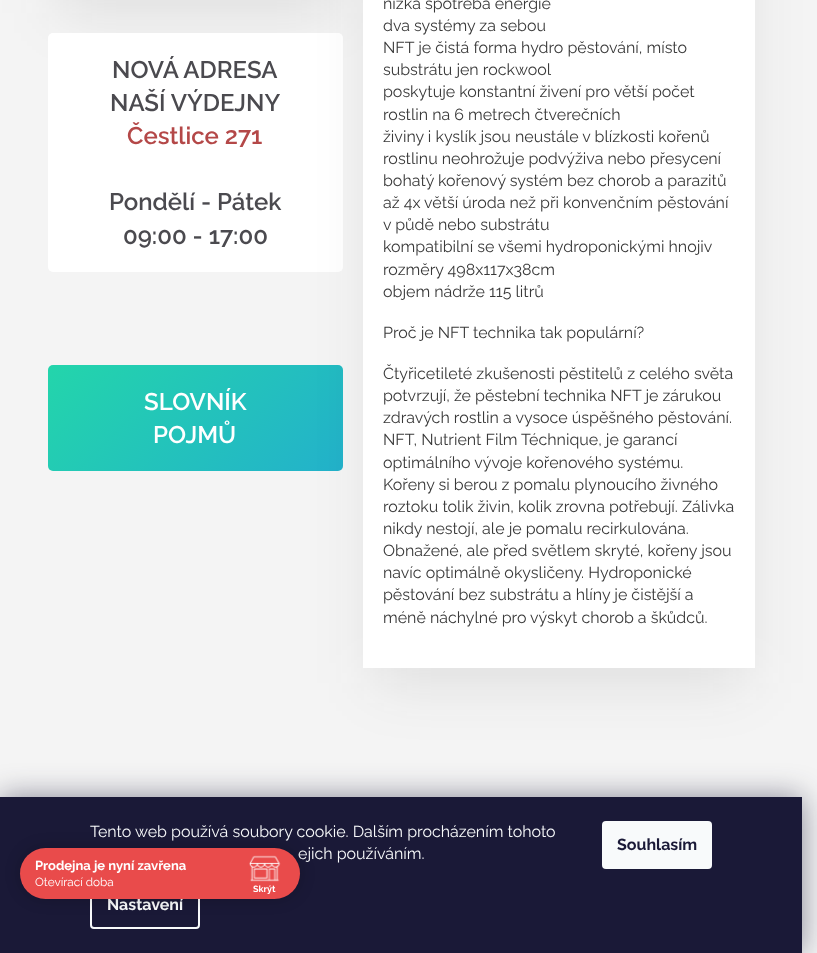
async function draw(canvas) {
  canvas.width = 817
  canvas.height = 953
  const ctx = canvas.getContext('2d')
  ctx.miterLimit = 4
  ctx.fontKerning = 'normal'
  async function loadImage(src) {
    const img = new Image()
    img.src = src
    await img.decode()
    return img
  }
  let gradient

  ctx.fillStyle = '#f4f4f4'
  ctx.fillRect(0, 0, 817, 953)
  ctx.fillStyle = '#29272c1a'
  ctx.filter = 'blur(30px)'
  ctx.beginPath()
  ctx.rect(59, -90, 275, 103)
  ctx.fill()
  ctx.filter = 'none'
  ctx.fillStyle = '#fff'
  ctx.beginPath()
  ctx.roundRect(48, 33, 295, 239, 5)
  ctx.fill()
  ctx.font = '600 24px Raleway'
  ctx.fillStyle = '#4b4a4f'
  ctx.fillText('NOVÁ ADRESA', 112, 78)
  ctx.fillText('NAŠÍ VÝDEJNY', 110, 111)
  ctx.fillStyle = '#b44848'
  ctx.fillText('Čestlice 271', 127, 144)
  ctx.fillStyle = '#4b4a4f'
  ctx.fillText('Pondělí - Pátek', 109, 210)
  ctx.fillText('09:00 - 17:00', 123, 244)
  gradient = ctx.createLinearGradient(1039, 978, 237, 176)
  gradient.addColorStop(0, '#ee7752')
  gradient.addColorStop(0.33, '#e73c7e')
  gradient.addColorStop(0.67, '#23a6d5')
  gradient.addColorStop(1, '#23d5ab')
  ctx.fillStyle = gradient
  ctx.beginPath()
  ctx.roundRect(48, 365, 295, 106, 5)
  ctx.fill()
  ctx.fillStyle = '#fff'
  ctx.fillText('SLOVNÍK', 144, 410)
  ctx.fillText('POJMŮ', 153, 443)
  ctx.fillStyle = '#29272c1a'
  ctx.filter = 'blur(30px)'
  ctx.beginPath()
  ctx.rect(374, -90, 372, 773)
  ctx.fill()
  ctx.filter = 'none'
  ctx.fillStyle = '#fff'
  ctx.fillRect(363, 0, 392, 668)
  ctx.font = '16px Raleway'
  ctx.fillStyle = '#393939'
  ctx.fillText('nízká spotřeba energie', 383, 9)
  ctx.fillText('dva systémy za sebou', 383, 31)
  ctx.fillText('NFT je čistá forma hydro pěstování, místo', 383, 53)
  ctx.fillText('substrátu jen rockwool', 383, 75)
  ctx.fillText('poskytuje konstantní živení pro větší počet', 383, 97)
  ctx.fillText('rostlin na 6 metrech čtverečních', 383, 120)
  ctx.fillText('živiny i kyslík jsou neustále v blízkosti kořenů', 383, 142)
  ctx.fillText('rostlinu neohrožuje podvýživa nebo přesycení', 383, 164)
  ctx.fillText('bohatý kořenový systém bez chorob a parazitů', 383, 186)
  ctx.fillText('až 4x větší úroda než při konvenčním pěstování', 383, 208)
  ctx.fillText('v půdě nebo substrátu', 383, 230)
  ctx.fillText('kompatibilní se všemi hydroponickými hnojiv', 383, 252)
  ctx.fillText('rozměry 498x117x38cm', 383, 275)
  ctx.fillText('objem nádrže 115 litrů', 383, 297)
  ctx.fillText('Proč je NFT technika tak populární?', 383, 338)
  ctx.fillText('Čtyřicetileté zkušenosti pěstitelů z celého světa', 383, 379)
  ctx.fillText('potvrzují, že pěstební technika NFT je zárukou', 383, 401)
  ctx.fillText('zdravých rostlin a vysoce úspěšného pěstování.', 383, 423)
  ctx.fillText('NFT, Nutrient Film Téchnique, je garancí', 383, 445)
  ctx.fillText('optimálního vývoje kořenového systému.', 383, 468)
  ctx.fillText('Kořeny si berou z pomalu plynoucího živného', 383, 490)
  ctx.fillText('roztoku tolik živin, kolik zrovna potřebují. Zálivka', 383, 512)
  ctx.fillText('nikdy nestojí, ale je pomalu recirkulována.', 383, 534)
  ctx.fillText('Obnažené, ale před světlem skryté, kořeny jsou', 383, 556)
  ctx.fillText('navíc optimálně okysličeny. Hydroponické', 383, 578)
  ctx.fillText('pěstování bez substrátu a hlíny je čistější a', 383, 600)
  ctx.fillText('méně náchylné pro výskyt chorob a škůdců.', 383, 623)
  ctx.fillStyle = '#1b193980'
  ctx.filter = 'blur(15px)'
  ctx.beginPath()
  ctx.rect(0, 797, 802, 156)
  ctx.fill()
  ctx.filter = 'none'
  ctx.fillStyle = '#1a1937'
  ctx.fillRect(0, 797, 802, 156)
  ctx.fillStyle = '#f8fafb'
  ctx.fillText('Tento web používá soubory cookie. Dalším procházením tohoto', 90, 837)
  ctx.fillText('ejich používáním.', 298, 859)
  ctx.beginPath()
  ctx.roundRect(91, 882, 108, 46, 3)
  ctx.strokeStyle = '#f8fafb'
  ctx.lineWidth = 2
  ctx.stroke()
  ctx.font = 'bold 16px Raleway'
  ctx.fillText('Nastavení', 107, 910)
  ctx.beginPath()
  ctx.roundRect(602, 821, 110, 48, 4)
  ctx.fill()
  ctx.fillStyle = '#1a1937'
  ctx.fillText('Souhlasím', 617, 850)
  ctx.fillStyle = '#00000033'
  ctx.filter = 'blur(7.5px)'
  ctx.beginPath()
  ctx.roundRect(20, 848, 280, 51, 25.5)
  ctx.fill()
  ctx.filter = 'none'
  ctx.fillStyle = '#e94b4b'
  ctx.beginPath()
  ctx.roundRect(20, 848, 280, 51, 25.5)
  ctx.fill()
  ctx.font = 'bold 13px Raleway'
  ctx.fillStyle = '#fff'
  ctx.fillText('Prodejna je nyní zavřena', 35, 870)
  ctx.font = '11.75px Raleway'
  ctx.fillText('Otevírací doba', 35, 886)
  ctx.drawImage(await loadImage('image0.png'), 249, 855, 32, 27)
  ctx.font = 'bold 9px Raleway'
  ctx.fillText('Skrýt', 253, 892)
}

draw(document.querySelector('canvas'))
